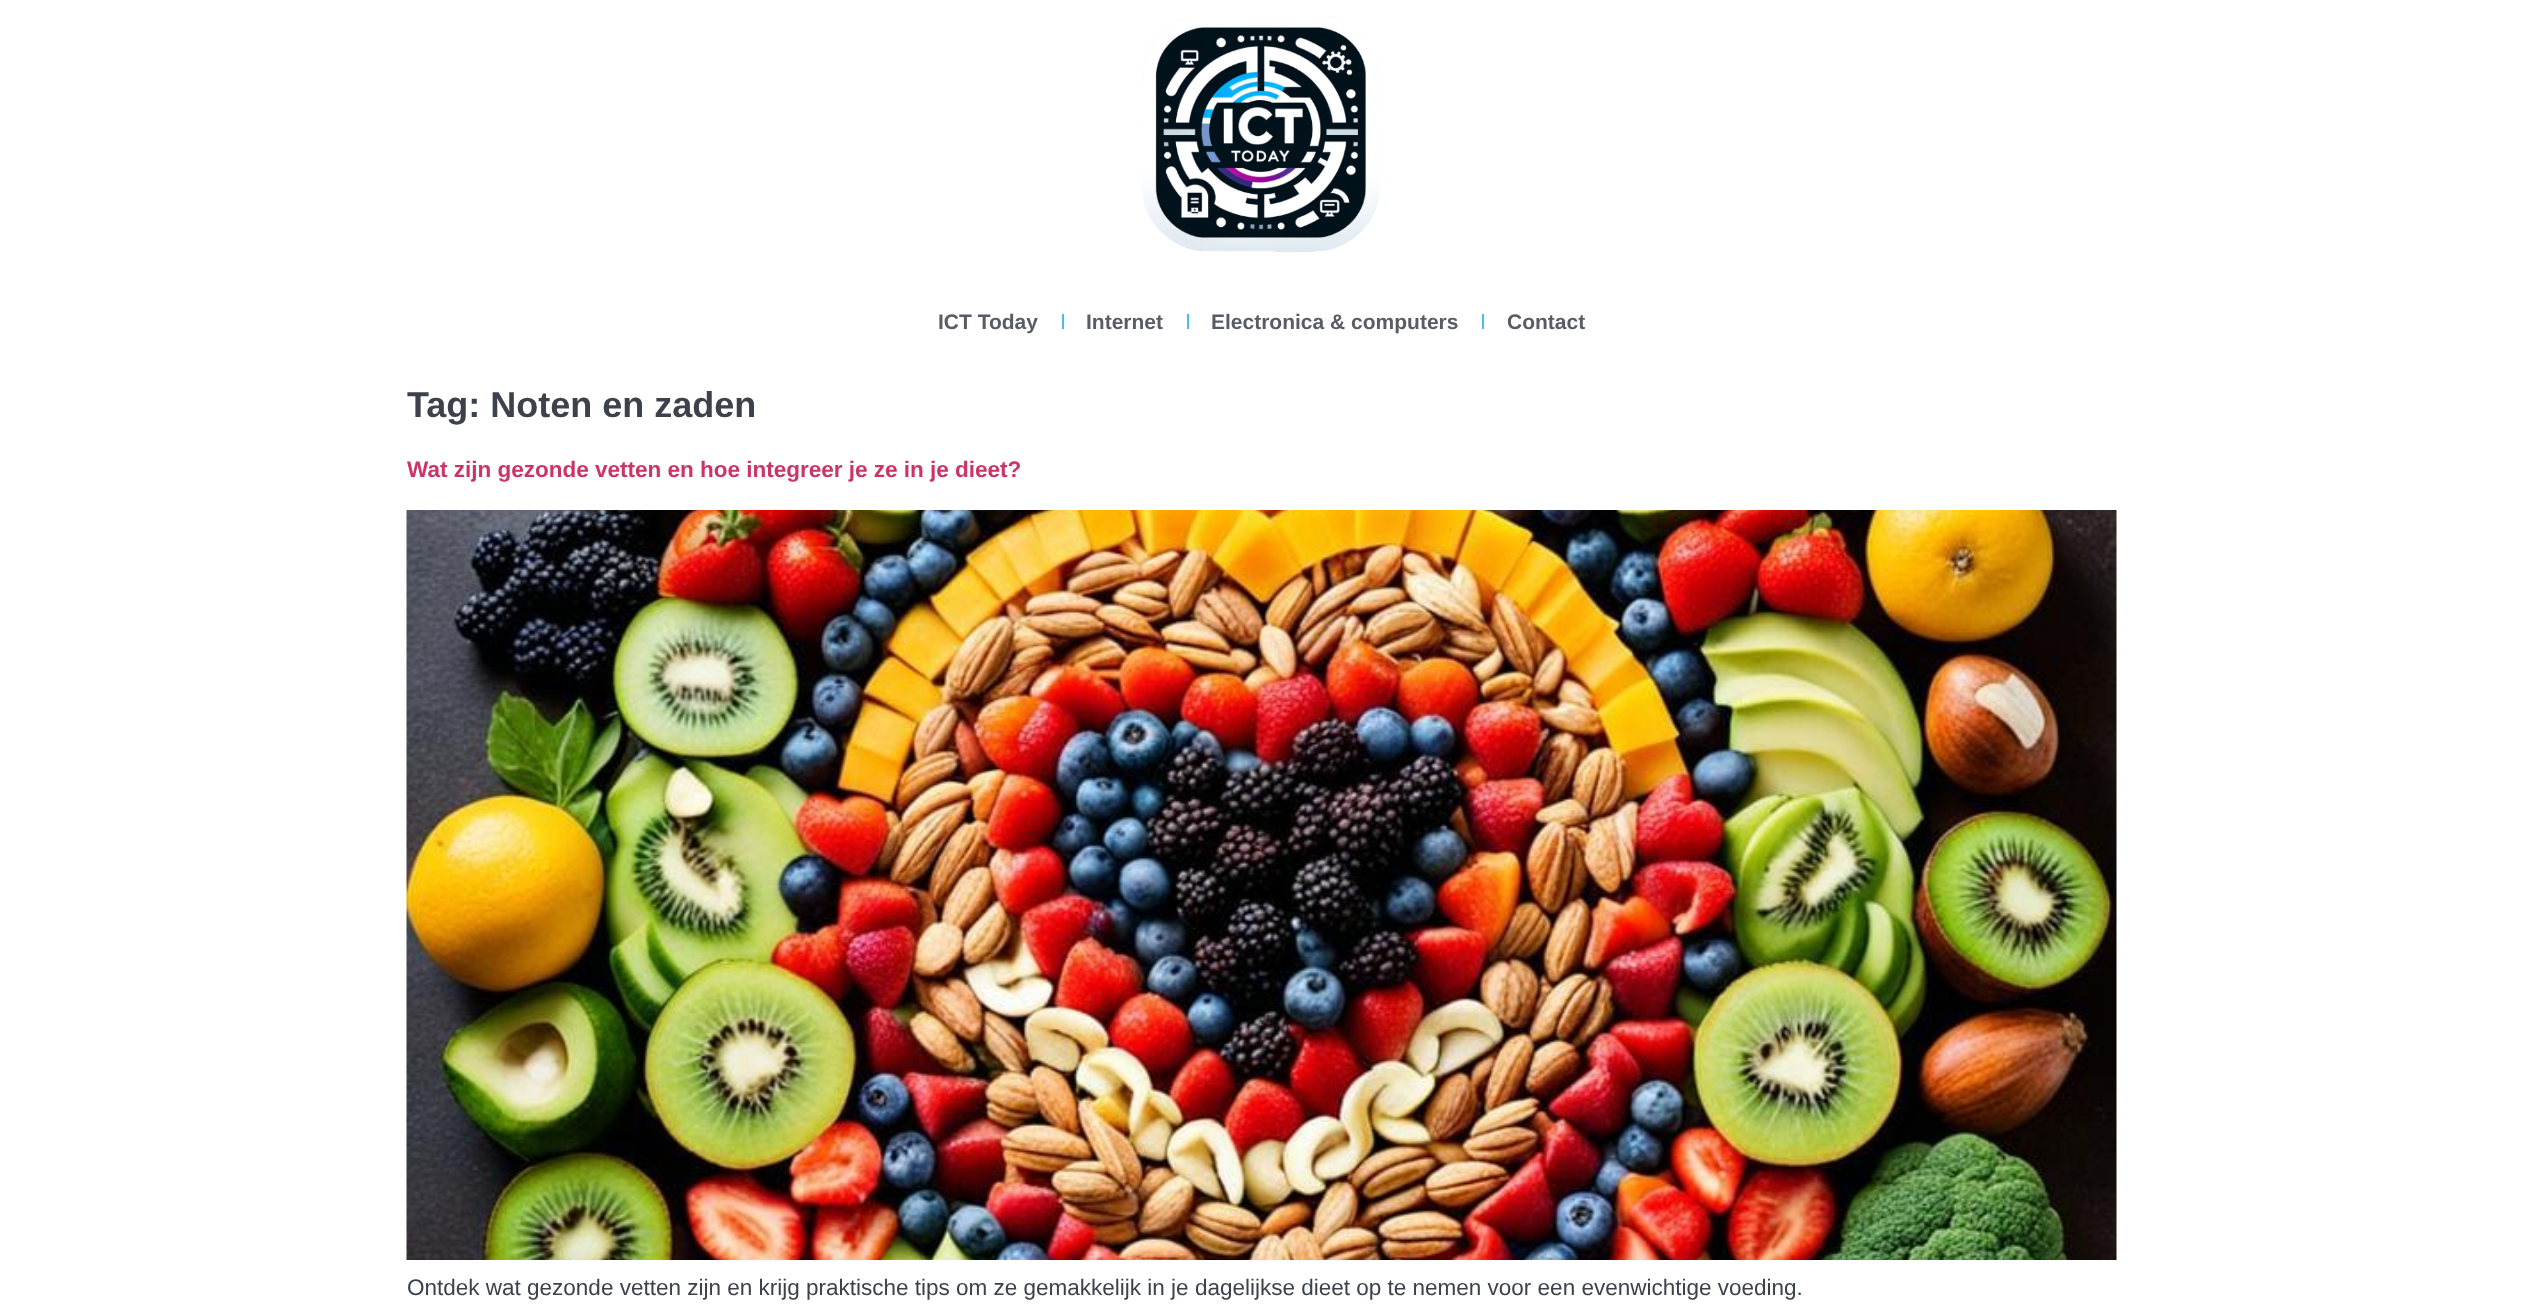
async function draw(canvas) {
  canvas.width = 2523
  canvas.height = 1311
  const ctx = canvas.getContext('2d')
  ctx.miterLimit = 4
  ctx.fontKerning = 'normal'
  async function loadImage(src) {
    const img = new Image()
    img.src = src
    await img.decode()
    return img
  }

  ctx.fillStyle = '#fff'
  ctx.fillRect(0, 0, 2523, 1311)
  ctx.drawImage(await loadImage('image0.png'), 1142, 15, 238, 237)
  ctx.font = 'bold 21px Liberation Sans'
  ctx.fillStyle = '#585c65'
  ctx.fillText('ICT Today', 938, 329)
  ctx.fillStyle = '#45bfec'
  ctx.fillRect(1062, 314, 2, 15)
  ctx.fillStyle = '#585c65'
  ctx.fillText('Internet', 1086, 329)
  ctx.fillStyle = '#45bfec'
  ctx.fillRect(1187, 314, 2, 15)
  ctx.fillStyle = '#585c65'
  ctx.fillText('Electronica & computers', 1211, 329)
  ctx.fillStyle = '#45bfec'
  ctx.fillRect(1482, 314, 2, 15)
  ctx.fillStyle = '#585c65'
  ctx.fillText('Contact', 1507, 329)
  ctx.font = 'bold 36px Liberation Sans'
  ctx.fillStyle = '#3d414c'
  ctx.fillText('Tag: Noten en zaden', 407, 417)
  ctx.font = 'bold 22.5px Liberation Sans'
  ctx.fillStyle = '#c36'
  ctx.fillText('Wat zijn gezonde vetten en hoe integreer je ze in je dieet?', 407, 477)
  ctx.drawImage(await loadImage('image1.png'), 406, 510, 1711, 750)
  ctx.font = '22.5px Liberation Sans'
  ctx.fillStyle = '#3d414c'
  ctx.fillText('Ontdek wat gezonde vetten zijn en krijg praktische tips om ze gemakkelijk in je dagelijkse dieet op te nemen voor een evenwichtige voeding.', 407, 1295)
}

draw(document.querySelector('canvas'))
